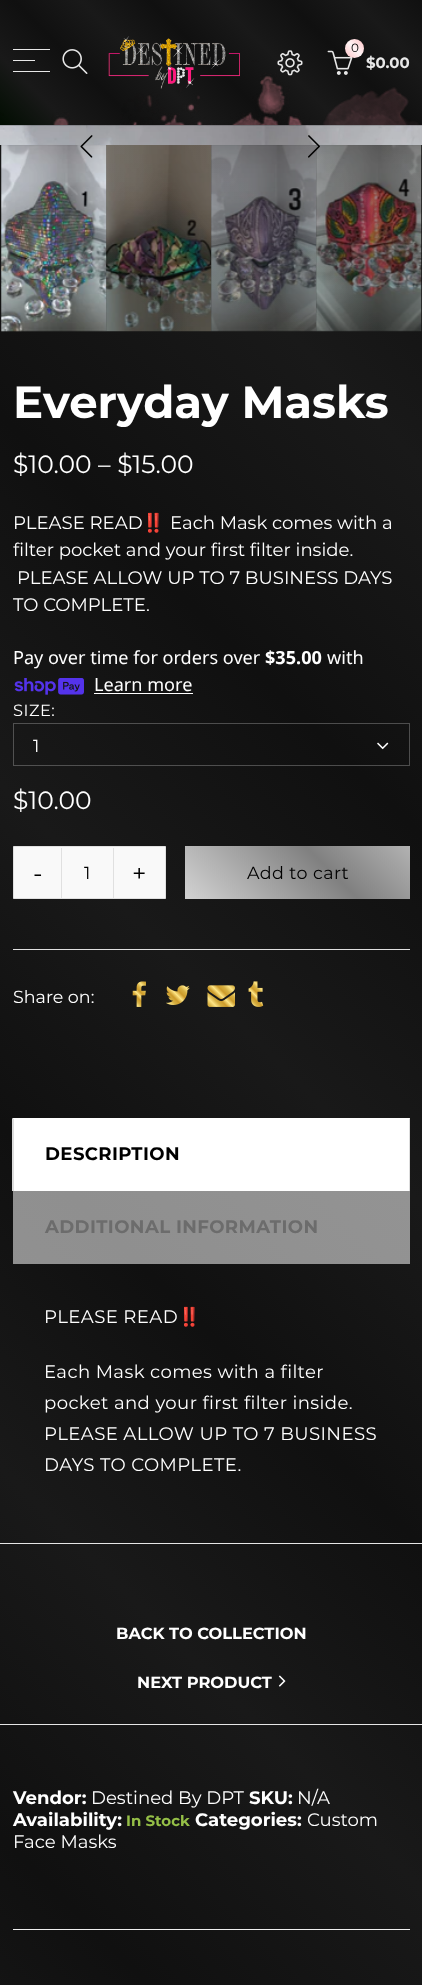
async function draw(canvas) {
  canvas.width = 422
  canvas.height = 1985
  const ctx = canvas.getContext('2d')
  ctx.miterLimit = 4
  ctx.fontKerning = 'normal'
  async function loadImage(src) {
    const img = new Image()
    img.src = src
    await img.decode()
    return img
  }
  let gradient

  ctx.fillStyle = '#fff'
  ctx.fillRect(0, 0, 422, 1985)
  ctx.drawImage(await loadImage('image0.png'), 0, 0, 422, 125)
  ctx.fillStyle = '#ffffffe6'
  ctx.fillRect(13, 49, 37, 1)
  ctx.fillRect(13, 60, 22, 1)
  ctx.fillRect(13, 71, 37, 1)
  ctx.drawImage(await loadImage('image1.png'), 62, 49, 26, 25)
  ctx.drawImage(await loadImage('image2.png'), 108, 36, 132, 53)
  ctx.drawImage(await loadImage('image3.png'), 277, 50, 26, 26)
  ctx.drawImage(await loadImage('image4.png'), 327, 50, 26, 25)
  gradient = ctx.createLinearGradient(345, 58, 364, 39)
  gradient.addColorStop(0, '#ffc1c4')
  gradient.addColorStop(0.5, '#fff4f5')
  gradient.addColorStop(1, '#ffc1c4')
  ctx.fillStyle = gradient
  ctx.beginPath()
  ctx.arc(354.5, 48.5, 9.5, 0, 2 * Math.PI)
  ctx.fill()
  ctx.font = '12px Montserrat'
  ctx.fillStyle = '#000'
  ctx.fillText('0', 351, 52)
  ctx.font = 'bold 15px Montserrat'
  ctx.fillStyle = '#e8e8e8'
  ctx.fillText('$0.00', 366, 68)
  gradient = ctx.createLinearGradient(-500, 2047, 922, 625)
  gradient.addColorStop(0, '#010d01')
  gradient.addColorStop(0.12, '#191919')
  gradient.addColorStop(0.25, '#101010')
  gradient.addColorStop(0.38, '#191919')
  gradient.addColorStop(0.5, '#101010')
  gradient.addColorStop(0.62, '#191919')
  gradient.addColorStop(0.75, '#101010')
  gradient.addColorStop(0.88, '#191919')
  gradient.addColorStop(1, '#101010')
  ctx.fillStyle = gradient
  ctx.fillRect(0, 145, 422, 1840)
  gradient = ctx.createLinearGradient(-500, 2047, 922, 625)
  gradient.addColorStop(0, '#888d88')
  gradient.addColorStop(0.12, '#939393')
  gradient.addColorStop(0.25, '#8f8f8f')
  gradient.addColorStop(0.38, '#939393')
  gradient.addColorStop(0.5, '#8f8f8f')
  gradient.addColorStop(0.62, '#939393')
  gradient.addColorStop(0.75, '#8f8f8f')
  gradient.addColorStop(0.88, '#939393')
  gradient.addColorStop(1, '#8f8f8f')
  ctx.fillStyle = gradient
  ctx.fillRect(13, 1191, 397, 73)
  ctx.drawImage(await loadImage('image5.png'), 0, 125, 422, 20)
  ctx.drawImage(await loadImage('image8.png'), 1, 145, 106, 187)
  ctx.drawImage(await loadImage('image6.png'), 80, 135, 13, 23)
  ctx.drawImage(await loadImage('image9.png'), 106, 145, 106, 187)
  ctx.drawImage(await loadImage('image10.png'), 211, 145, 106, 187)
  ctx.drawImage(await loadImage('image11.png'), 316, 145, 106, 187)
  ctx.drawImage(await loadImage('image7.png'), 308, 135, 12, 23)
  ctx.font = 'bold 45px Montserrat'
  ctx.fillStyle = '#fff'
  ctx.fillText('Everyday Masks', 13, 418)
  ctx.font = '25px Montserrat'
  ctx.fillText('$10.00 – $15.00', 13, 473)
  ctx.font = '18.1px Montserrat'
  ctx.fillText('PLEASE READ', 13, 529)
  ctx.font = '18.1px Noto Color Emoji'
  ctx.fillText('‼️', 142, 529)
  ctx.font = '18.1px Montserrat'
  ctx.fillText('Each Mask comes with a', 170, 529)
  ctx.fillText('filter pocket and your first filter inside.', 13, 556)
  ctx.fillText('PLEASE ALLOW UP TO 7 BUSINESS DAYS', 17, 584)
  ctx.fillText('TO COMPLETE.', 13, 611)
  ctx.font = '18.1px Noto Sans'
  ctx.fillText('Pay over time for orders over', 13, 664)
  ctx.font = 'bold 18.1px Noto Sans'
  ctx.fillText('$35.00', 265, 664)
  ctx.font = '18.1px Noto Sans'
  ctx.fillText('with', 327, 664)
  ctx.drawImage(await loadImage('image12.png'), 14, 678, 70, 17)
  ctx.fillText('Learn more', 94, 691)
  ctx.fillRect(94, 693, 99, 1)
  ctx.letterSpacing = '0.5px'
  ctx.font = '16.25px Montserrat'
  ctx.fillText('SIZE:', 13, 716)
  ctx.strokeStyle = '#a8a8a866'
  ctx.strokeRect(13.5, 723.5, 396, 42)
  ctx.letterSpacing = '0px'
  ctx.font = '17.5px Montserrat'
  ctx.fillText('1', 33, 752)
  ctx.drawImage(await loadImage('image13.png'), 377, 742, 12, 8)
  ctx.font = '25px Montserrat'
  ctx.fillText('$10.00', 13, 809)
  ctx.fillStyle = '#f9f9f9'
  ctx.beginPath()
  ctx.rect(13.5, 846.5, 152, 52)
  ctx.fill()
  ctx.strokeStyle = '#e0e0e0'
  ctx.stroke()
  ctx.fillStyle = '#e0e0e0'
  ctx.fillRect(61, 848, 1, 50)
  ctx.fillStyle = '#000'
  ctx.fillText('-', 33, 882)
  ctx.font = '17.5px Montserrat'
  ctx.fillText('1', 84, 879)
  ctx.fillStyle = '#e0e0e0'
  ctx.fillRect(113, 848, 1, 50)
  ctx.font = '25px Montserrat'
  ctx.fillStyle = '#000'
  ctx.fillText('+', 132, 882)
  gradient = ctx.createLinearGradient(-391, 1594, 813, 391)
  gradient.addColorStop(0, '#d0d0d0')
  gradient.addColorStop(0.07, '#808080')
  gradient.addColorStop(0.13, '#d0d0d0')
  gradient.addColorStop(0.2, '#909090')
  gradient.addColorStop(0.27, '#d0d0d0')
  gradient.addColorStop(0.33, '#808080')
  gradient.addColorStop(0.4, '#d0d0d0')
  gradient.addColorStop(0.47, '#808080')
  gradient.addColorStop(0.53, '#d0d0d0')
  gradient.addColorStop(0.6, '#808080')
  gradient.addColorStop(0.67, '#d0d0d0')
  gradient.addColorStop(0.73, '#808080')
  gradient.addColorStop(0.8, '#d0d0d0')
  gradient.addColorStop(0.87, '#808080')
  gradient.addColorStop(0.93, '#d0d0d0')
  gradient.addColorStop(1, '#808080')
  ctx.fillStyle = gradient
  ctx.fillRect(185, 846, 225, 53)
  ctx.letterSpacing = '0.4px'
  ctx.font = '17.5px Montserrat'
  ctx.fillStyle = '#000'
  ctx.fillText('Add to cart', 247, 879)
  ctx.fillStyle = '#e0e0e0'
  ctx.fillRect(13, 949, 397, 1)
  ctx.letterSpacing = '0px'
  ctx.fillStyle = '#fff'
  ctx.fillText('Share on:', 13, 1003)
  ctx.drawImage(await loadImage('image14.png'), 132, 981, 14, 26)
  ctx.drawImage(await loadImage('image15.png'), 166, 985, 24, 20)
  ctx.drawImage(await loadImage('image16.png'), 207, 985, 28, 22)
  ctx.drawImage(await loadImage('image17.png'), 248, 981, 16, 26)
  ctx.fillRect(13, 1118, 397, 73)
  ctx.fillStyle = '#ddd'
  ctx.beginPath()
  ctx.moveTo(410, 1118)
  ctx.lineTo(410, 1191)
  ctx.lineTo(409, 1191)
  ctx.lineTo(409, 1119)
  ctx.closePath()
  ctx.fill()
  ctx.beginPath()
  ctx.moveTo(12, 1191)
  ctx.lineTo(12, 1118)
  ctx.lineTo(14, 1119)
  ctx.lineTo(14, 1191)
  ctx.closePath()
  ctx.fill()
  ctx.letterSpacing = '0.4px'
  ctx.font = 'bold 18.1px Montserrat'
  ctx.fillStyle = '#000'
  ctx.fillText('DESCRIPTION', 45, 1160)
  ctx.fillStyle = '#6c6c6c'
  ctx.fillText('ADDITIONAL INFORMATION', 45, 1233)
  ctx.font = '18.1px Montserrat'
  ctx.fillStyle = '#fff'
  ctx.fillText('PLEASE READ', 44, 1323)
  ctx.font = '18.1px Noto Color Emoji'
  ctx.fillText('‼️', 178, 1323)
  ctx.font = '18.1px Montserrat'
  ctx.fillText('Each Mask comes with a filter', 44, 1378)
  ctx.fillText('pocket and your first filter inside.', 44, 1409)
  ctx.fillText('PLEASE ALLOW UP TO 7 BUSINESS', 44, 1440)
  ctx.fillText('DAYS TO COMPLETE.', 44, 1471)
  ctx.fillStyle = '#e6e6e6'
  ctx.fillRect(0, 1543, 422, 1)
  ctx.fillRect(0, 1724, 422, 1)
  ctx.letterSpacing = '0px'
  ctx.font = 'bold 16.25px Montserrat'
  ctx.fillStyle = '#fff'
  ctx.fillText('BACK TO COLLECTION', 116, 1639)
  ctx.fillText('NEXT PRODUCT', 137, 1688)
  ctx.drawImage(await loadImage('image18.png'), 278, 1675, 8, 12)
  ctx.font = 'bold 18.1px Montserrat'
  ctx.fillText('Vendor:', 13, 1804)
  ctx.font = '18.1px Montserrat'
  ctx.fillText('Destined By DPT', 91, 1804)
  ctx.font = 'bold 18.1px Montserrat'
  ctx.fillText('SKU:', 249, 1804)
  ctx.font = '18.1px Montserrat'
  ctx.fillText('N/A', 297, 1804)
  ctx.font = 'bold 18.1px Montserrat'
  ctx.fillText('Availability:', 13, 1826)
  ctx.font = 'bold 15px Montserrat'
  ctx.fillStyle = '#95bf47'
  ctx.fillText('In Stock', 126, 1826)
  ctx.font = 'bold 18.1px Montserrat'
  ctx.fillStyle = '#fff'
  ctx.fillText('Categories:', 195, 1826)
  ctx.font = '18.1px Montserrat'
  ctx.fillText('Custom', 307, 1826)
  ctx.fillText('Face Masks', 13, 1848)
  ctx.fillStyle = '#eee'
  ctx.fillRect(13, 1929, 397, 1)
}

draw(document.querySelector('canvas'))
